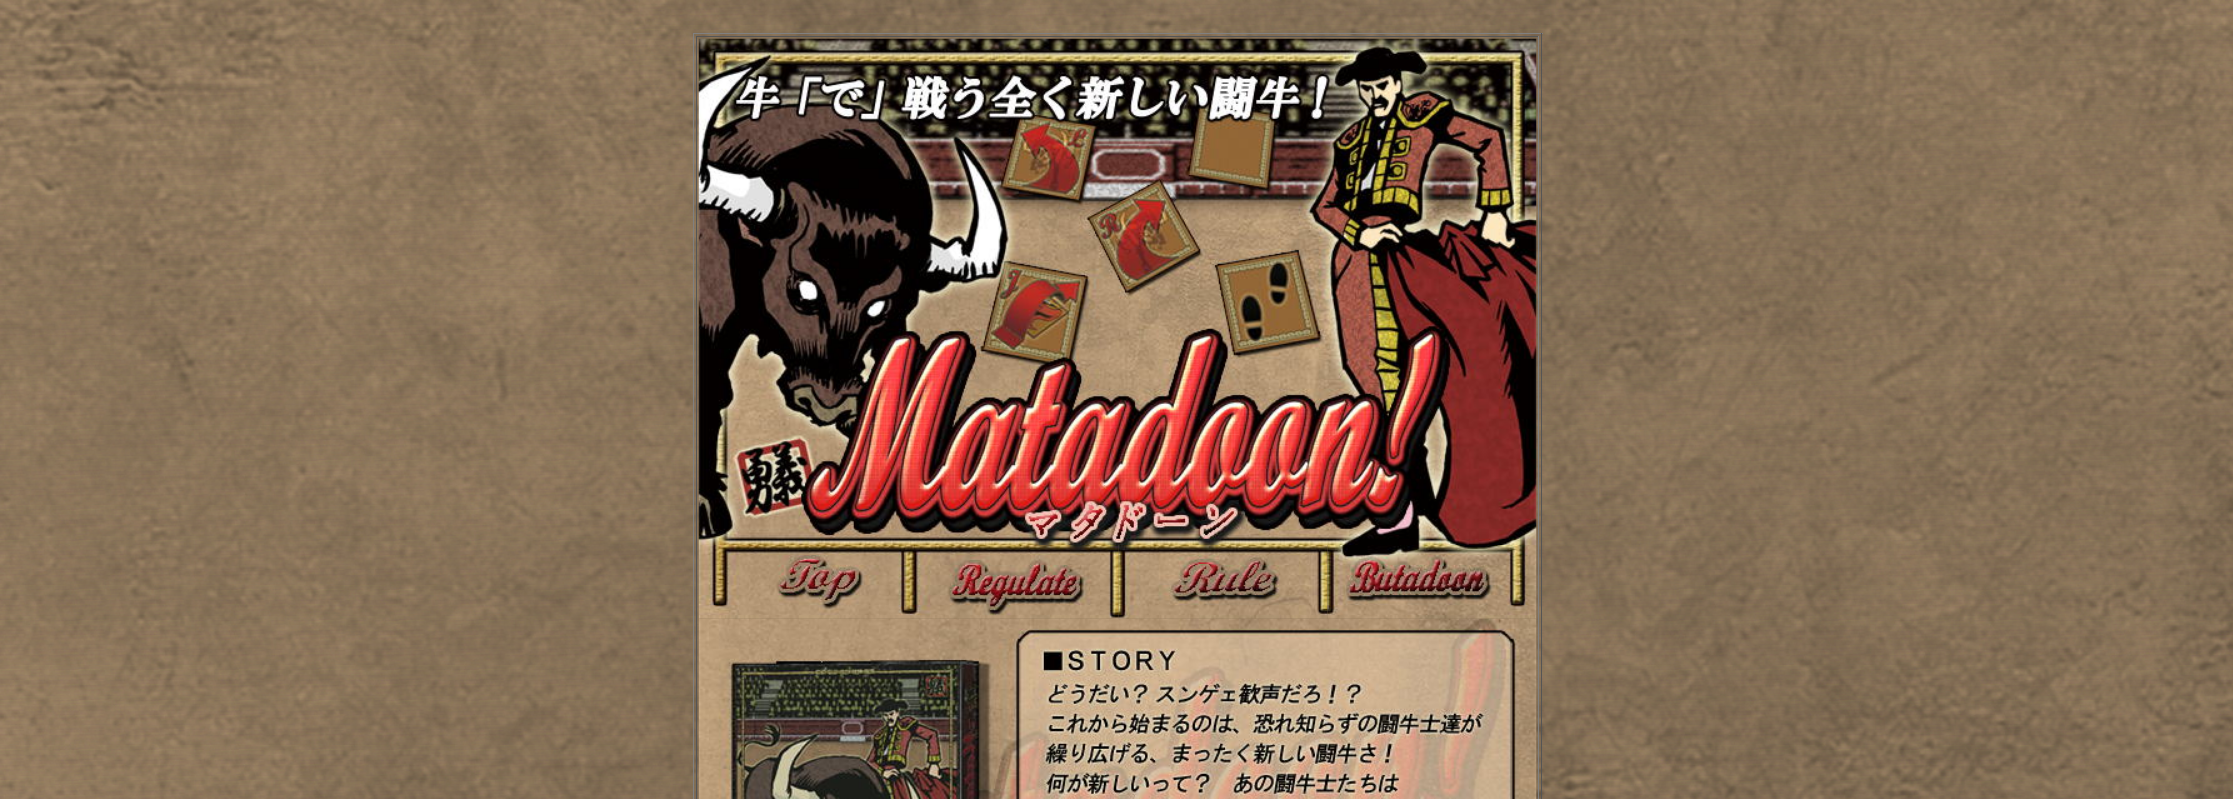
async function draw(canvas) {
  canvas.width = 2233
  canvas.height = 799
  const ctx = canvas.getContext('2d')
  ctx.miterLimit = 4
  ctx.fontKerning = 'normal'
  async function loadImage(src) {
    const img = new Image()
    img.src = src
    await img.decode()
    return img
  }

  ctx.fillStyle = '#fff'
  ctx.fillRect(0, 0, 2233, 799)
  ctx.drawImage(await loadImage('image0.png'), 0, 0, 2233, 799)
  ctx.fillStyle = '#808080'
  ctx.fillRect(693, 33, 850, 1)
  ctx.fillStyle = '#555'
  ctx.fillRect(1541, 33, 1, 766)
  ctx.fillStyle = '#808080'
  ctx.fillRect(693, 33, 1, 766)
  ctx.fillStyle = '#555'
  ctx.fillRect(696, 36, 843, 1)
  ctx.fillStyle = '#808080'
  ctx.fillRect(1538, 36, 1, 763)
  ctx.fillStyle = '#555'
  ctx.fillRect(696, 36, 1, 763)
  ctx.drawImage(await loadImage('image1.png'), 698, 38, 839, 507)
  ctx.drawImage(await loadImage('image2.png'), 698, 545, 212, 74)
  ctx.drawImage(await loadImage('image3.png'), 910, 545, 209, 74)
  ctx.drawImage(await loadImage('image4.png'), 1118, 545, 210, 74)
  ctx.drawImage(await loadImage('image5.png'), 1327, 545, 210, 74)
  ctx.drawImage(await loadImage('image6.png'), 698, 618, 839, 181)
}

draw(document.querySelector('canvas'))
